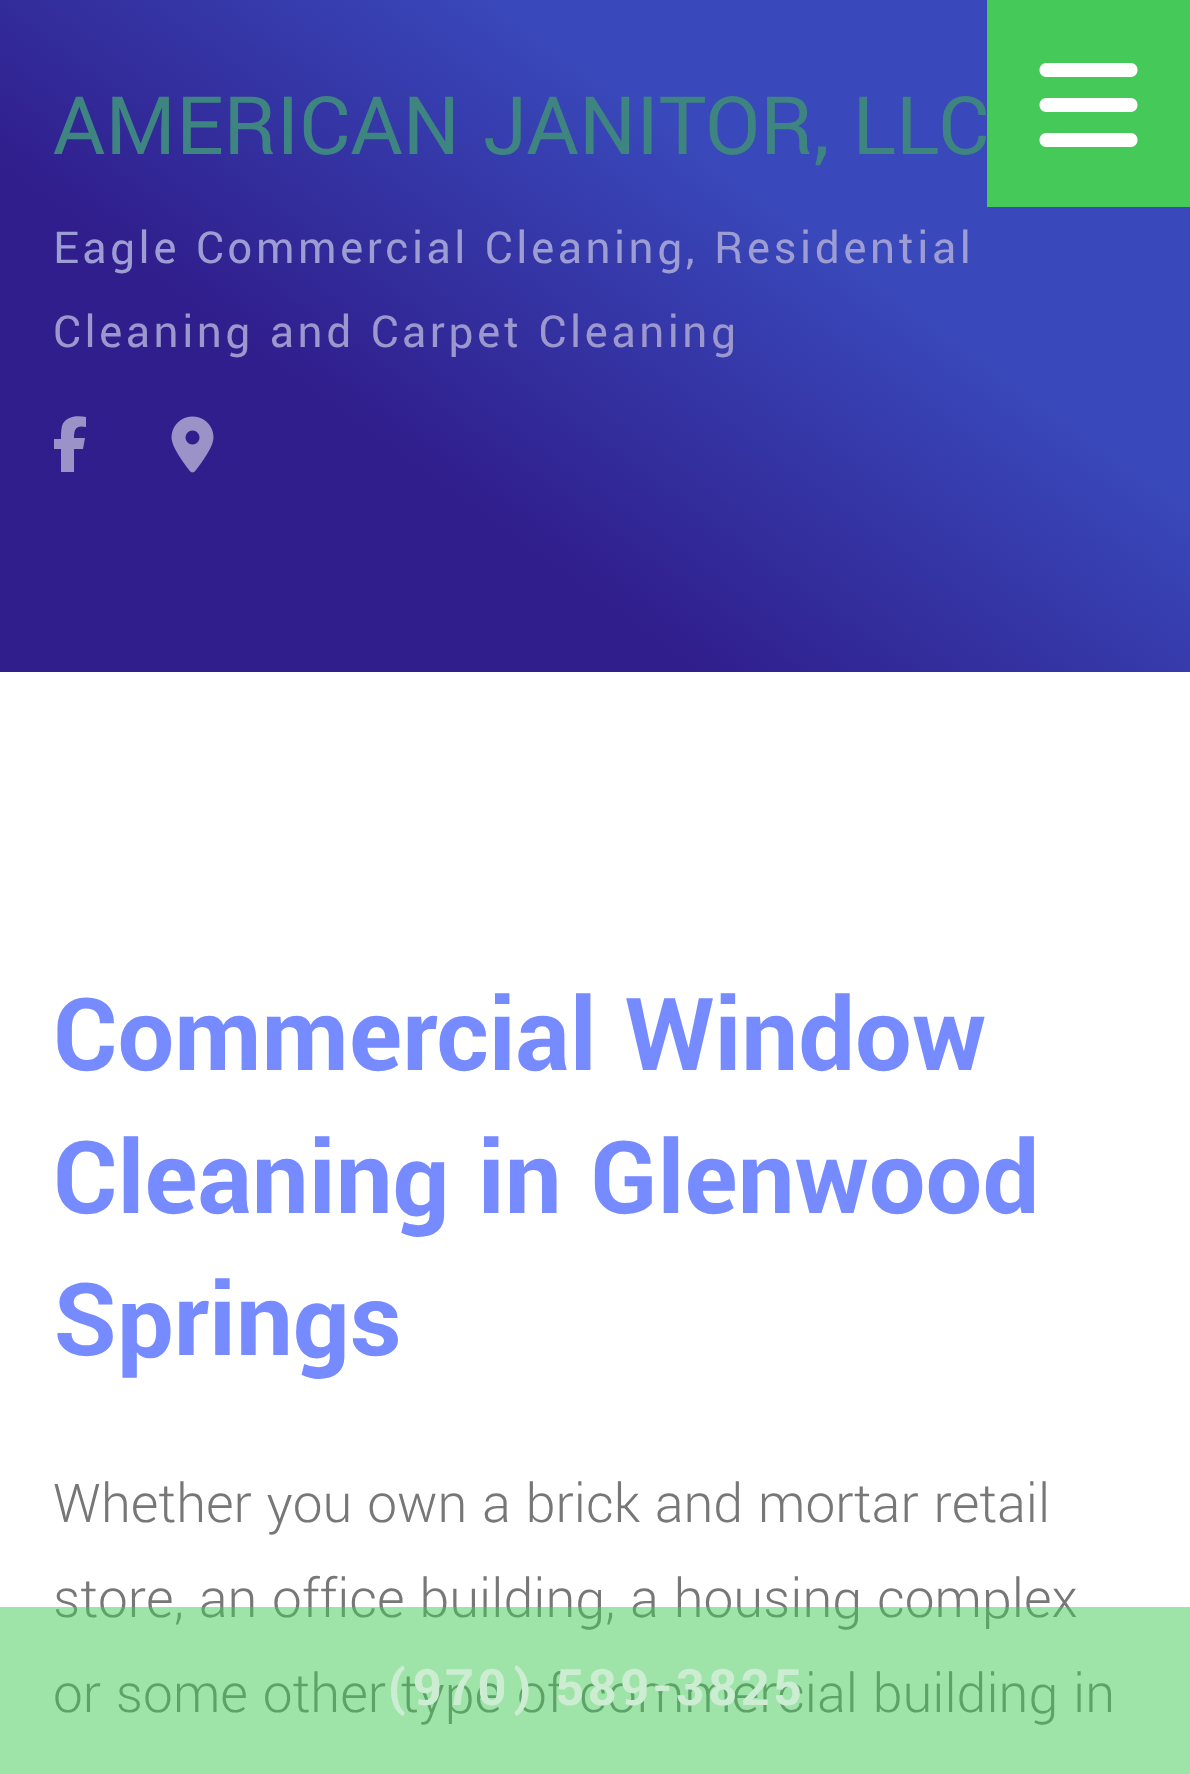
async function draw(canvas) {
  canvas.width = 1190
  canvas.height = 1774
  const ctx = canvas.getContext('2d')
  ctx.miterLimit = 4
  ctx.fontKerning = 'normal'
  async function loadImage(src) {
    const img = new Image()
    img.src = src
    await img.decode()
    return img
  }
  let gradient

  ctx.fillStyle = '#fff'
  ctx.fillRect(0, 0, 1190, 1774)
  gradient = ctx.createLinearGradient(230, 839, 960, -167)
  gradient.addColorStop(0, '#301e8c')
  gradient.addColorStop(0.33, '#301e8c')
  gradient.addColorStop(0.67, '#3948ba')
  gradient.addColorStop(1, '#3948ba')
  ctx.fillStyle = gradient
  ctx.fillRect(0, 0, 1190, 672)
  ctx.font = '89.6px Yantramanav'
  ctx.fillStyle = '#3e8481'
  ctx.fillText('AMERICAN JANITOR, LLC', 53, 154)
  ctx.letterSpacing = '3.5px'
  ctx.font = '49px Yantramanav'
  ctx.fillStyle = '#9d9dd3'
  ctx.fillText('Eagle Commercial Cleaning, Residential', 53, 263)
  ctx.fillStyle = '#9c97cd'
  ctx.fillText('Cleaning and Carpet Cleaning', 53, 347)
  ctx.fillStyle = '#9b92c7'
  ctx.beginPath()
  ctx.moveTo(61, 449)
  ctx.lineTo(61, 472)
  ctx.lineTo(61, 449)
  ctx.lineTo(61, 472)
  ctx.lineTo(74, 472)
  ctx.lineTo(74, 449)
  ctx.lineTo(83, 449)
  ctx.lineTo(85, 438)
  ctx.lineTo(74, 438)
  ctx.bezierCurveTo(74, 429, 76, 425, 86, 427)
  ctx.lineTo(86, 417)
  ctx.bezierCurveTo(77, 415, 65, 416, 62, 426)
  ctx.bezierCurveTo(61, 430, 61, 434, 61, 439)
  ctx.lineTo(54, 439)
  ctx.lineTo(54, 449)
  ctx.closePath()
  ctx.fill()
  ctx.drawImage(await loadImage('image0.png'), 171, 416, 43, 57)
  ctx.letterSpacing = '0px'
  ctx.font = '300 59.5px Yantramanav'
  ctx.fillStyle = '#777'
  ctx.fillText('store, an office building, a housing complex', 53, 1617)
  ctx.fillText('or some other type of commercial building in', 53, 1712)
  ctx.fillStyle = '#45c95885'
  ctx.fillRect(0, 1607, 1190, 167)
  ctx.letterSpacing = '3.5px'
  ctx.font = 'bold 56px Yantramanav'
  ctx.fillStyle = '#ccedd1'
  ctx.fillText('(970) 589-3825', 385, 1705)
  ctx.fillStyle = '#45c958'
  ctx.fillRect(987, 0, 203, 207)
  ctx.drawImage(await loadImage('image1.png'), 1039, 63, 99, 84)
  ctx.letterSpacing = '0px'
  ctx.font = 'bold 112px Yantramanav'
  ctx.fillStyle = '#768bff'
  ctx.fillText('Commercial Window', 53, 1070)
  ctx.fillText('Cleaning in Glenwood', 53, 1213)
  ctx.fillText('Springs', 53, 1355)
  ctx.font = '300 59.5px Yantramanav'
  ctx.fillStyle = '#777'
  ctx.fillText('Whether you own a brick and mortar retail', 53, 1522)
}

draw(document.querySelector('canvas'))
